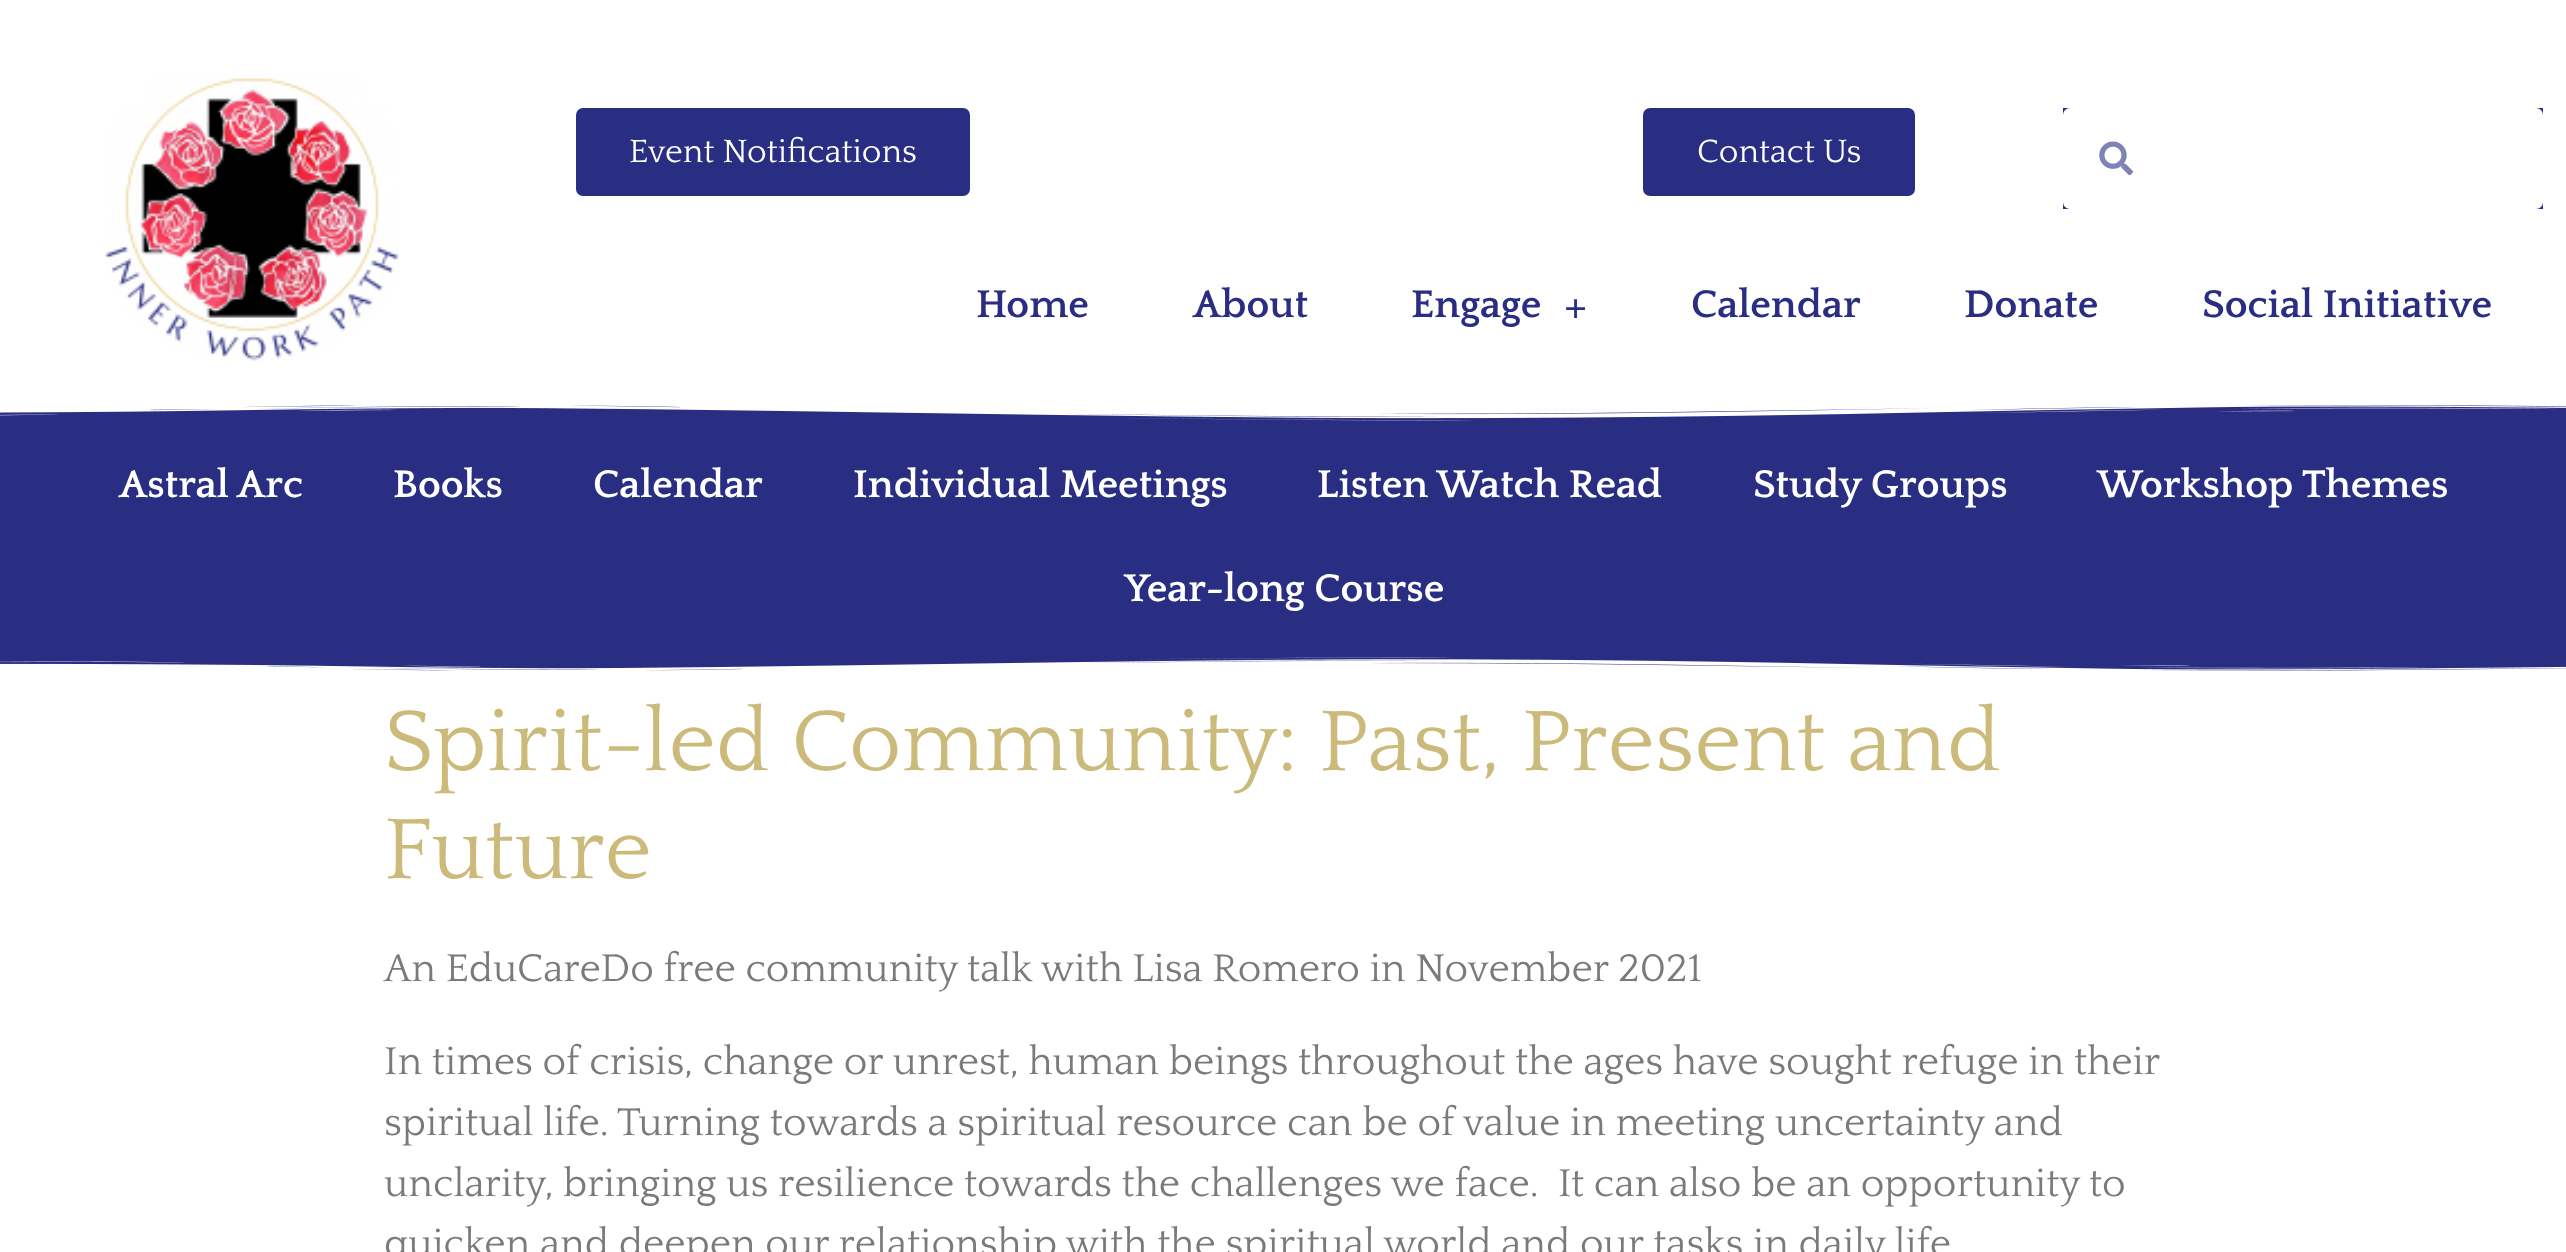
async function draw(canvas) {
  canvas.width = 2566
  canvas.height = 1252
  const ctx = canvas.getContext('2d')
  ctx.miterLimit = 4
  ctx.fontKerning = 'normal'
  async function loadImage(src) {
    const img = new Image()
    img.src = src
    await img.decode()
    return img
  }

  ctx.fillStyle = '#fff'
  ctx.fillRect(0, 0, 2566, 1252)
  ctx.drawImage(await loadImage('image0.png'), 105, 78, 294, 283)
  ctx.fillStyle = '#292e82'
  ctx.beginPath()
  ctx.roundRect(576, 108, 394, 88, 7)
  ctx.fill()
  ctx.font = '33.75px Quattrocento'
  ctx.fillStyle = '#fff'
  ctx.fillText('Event Notifications', 629, 162)
  ctx.fillStyle = '#292e82'
  ctx.beginPath()
  ctx.roundRect(1643, 108, 272, 88, 7)
  ctx.fill()
  ctx.fillStyle = '#fff'
  ctx.fillText('Contact Us', 1697, 162)
  ctx.fillStyle = '#292e82'
  ctx.fillRect(2063, 108, 480, 101)
  ctx.fillStyle = '#fff'
  ctx.beginPath()
  ctx.roundRect(2064, 109, 478, 99, 6)
  ctx.fill()
  ctx.strokeStyle = '#fff'
  ctx.lineWidth = 2
  ctx.stroke()
  ctx.drawImage(await loadImage('image1.png'), 2099, 141, 34, 35)
  ctx.font = 'bold 40.5px Quattrocento'
  ctx.fillStyle = '#292e82'
  ctx.fillText('Home', 976, 317)
  ctx.fillText('About', 1193, 317)
  ctx.fillText('Engage', 1411, 317)
  ctx.font = 'bold 40.5px Liberation Serif'
  ctx.fillText('+', 1564, 322)
  ctx.font = 'bold 40.5px Quattrocento'
  ctx.fillText('Calendar', 1691, 317)
  ctx.fillText('Donate', 1964, 317)
  ctx.fillText('Social Initiative', 2202, 317)
  ctx.fillRect(0, 405, 2566, 266)
  ctx.drawImage(await loadImage('image2.png'), 0, 405, 2566, 16)
  ctx.fillStyle = '#fff'
  ctx.fillText('Astral Arc', 119, 497)
  ctx.fillText('Books', 393, 497)
  ctx.fillText('Calendar', 593, 497)
  ctx.fillText('Individual Meetings', 853, 497)
  ctx.fillText('Listen Watch Read', 1317, 497)
  ctx.fillText('Study Groups', 1753, 497)
  ctx.fillText('Workshop Themes', 2097, 497)
  ctx.fillText('Year-long Course', 1124, 601)
  ctx.drawImage(await loadImage('image3.png'), 0, 657, 2566, 14)
  ctx.font = '90px Quattrocento'
  ctx.fillStyle = '#ccba7b'
  ctx.fillText('Spirit-led Community: Past, Present and', 384, 770)
  ctx.fillText('Future', 384, 878)
  ctx.font = '40.5px Quattrocento'
  ctx.fillStyle = '#7a7a7a'
  ctx.fillText('An EduCareDo free community talk with Lisa Romero in November 2021', 384, 981)
  ctx.fillText('In times of crisis, change or unrest, human beings throughout the ages have sought refuge in their', 384, 1074)
  ctx.fillText('spiritual life. Turning towards a spiritual resource can be of value in meeting uncertainty and', 384, 1135)
  ctx.fillText('unclarity, bringing us resilience towards the challenges we face.  It can also be an opportunity to', 384, 1196)
  ctx.fillText('quicken and deepen our relationship with the spiritual world and our tasks in daily life', 384, 1256)
}

draw(document.querySelector('canvas'))
